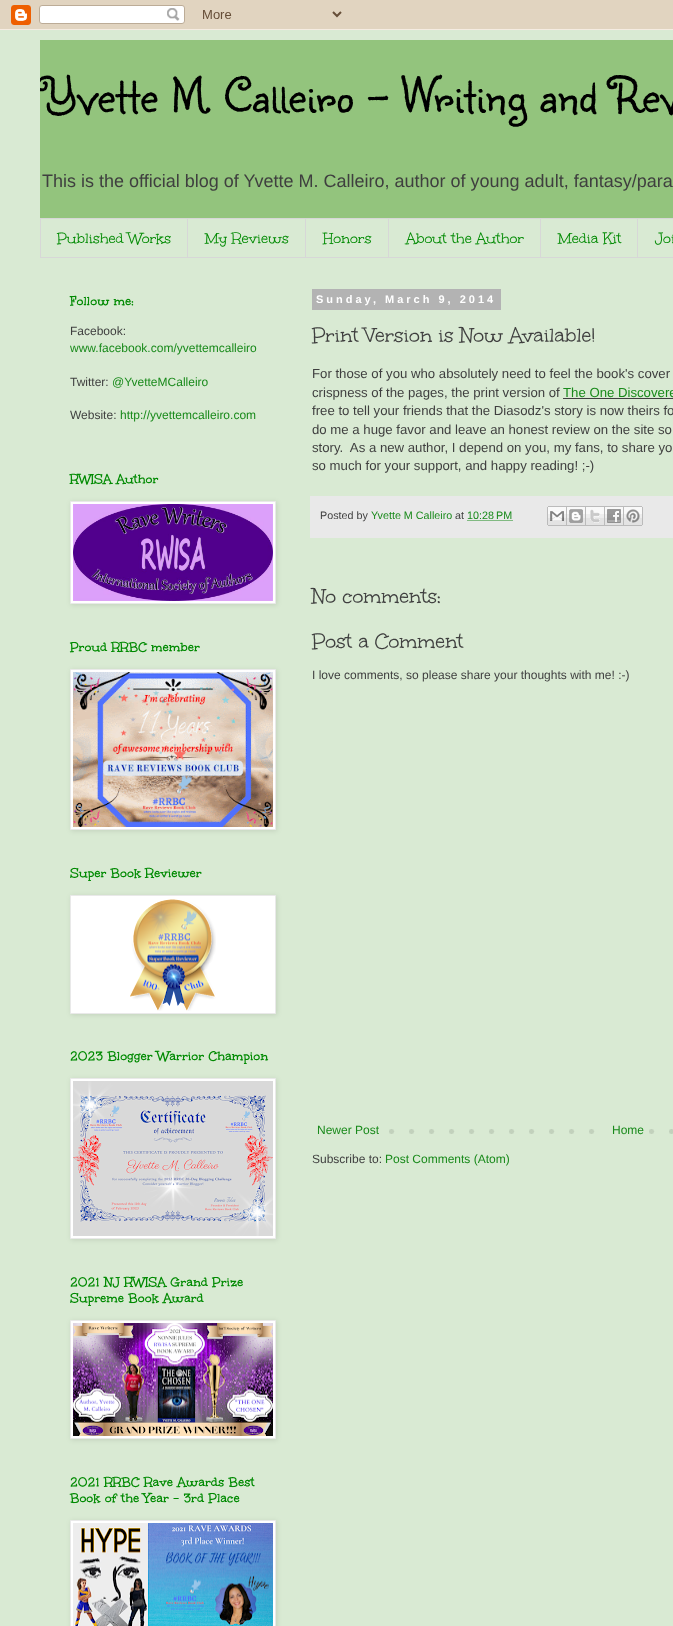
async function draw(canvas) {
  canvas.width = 673
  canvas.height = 1626
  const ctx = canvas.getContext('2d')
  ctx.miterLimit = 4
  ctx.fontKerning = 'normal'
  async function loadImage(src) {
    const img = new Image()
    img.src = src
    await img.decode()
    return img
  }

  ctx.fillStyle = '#d9ead3'
  ctx.fillRect(0, 0, 673, 1626)
  ctx.drawImage(await loadImage('image0.png'), 0, 0, 673, 30)
  ctx.fillStyle = '#93c47d'
  ctx.fillRect(40, 40, 633, 178)
  ctx.save()
  ctx.beginPath()
  ctx.rect(40, 40, 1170, 179)
  ctx.clip()
  ctx.font = '50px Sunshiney'
  ctx.fillStyle = '#000'
  ctx.fillText('Yvette M. Calleiro - Writing and Rev', 40, 112)
  ctx.restore()
  ctx.font = '18px Liberation Sans'
  ctx.fillStyle = '#3f3f3f'
  ctx.fillText('This is the official blog of Yvette M. Calleiro, author of young adult, fantasy/para', 42, 187)
  ctx.strokeStyle = '#d7d7d7'
  ctx.strokeRect(40.5, 218.5, 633, 39)
  ctx.fillStyle = '#d7d7d7'
  ctx.fillRect(187, 219, 1, 38)
  ctx.font = '16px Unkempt'
  ctx.fillStyle = '#008a02'
  ctx.fillText('Published Works', 57, 244)
  ctx.fillStyle = '#d7d7d7'
  ctx.fillRect(305, 219, 1, 38)
  ctx.fillStyle = '#008a02'
  ctx.fillText('My Reviews', 205, 244)
  ctx.fillStyle = '#d7d7d7'
  ctx.fillRect(388, 219, 1, 38)
  ctx.fillStyle = '#008a02'
  ctx.fillText('Honors', 323, 244)
  ctx.fillStyle = '#d7d7d7'
  ctx.fillRect(540, 219, 1, 38)
  ctx.fillStyle = '#008a02'
  ctx.fillText('About the Author', 406, 244)
  ctx.fillStyle = '#d7d7d7'
  ctx.fillRect(637, 219, 1, 38)
  ctx.fillStyle = '#008a02'
  ctx.fillText('Media Kit', 558, 244)
  ctx.fillText('Joi', 655, 244)
  ctx.font = 'bold 14px Unkempt'
  ctx.fillText('Follow me:', 70, 306)
  ctx.font = '12px Liberation Sans'
  ctx.fillStyle = '#3f3f3f'
  ctx.fillText('Facebook:', 70, 335)
  ctx.fillStyle = '#198a1b'
  ctx.fillText('www.facebook.com/yvettemcalleiro', 70, 352)
  ctx.fillStyle = '#3f3f3f'
  ctx.fillText('Twitter:', 70, 386)
  ctx.fillStyle = '#198a1b'
  ctx.fillText('@YvetteMCalleiro', 112, 386)
  ctx.fillStyle = '#3f3f3f'
  ctx.fillText('Website:', 70, 419)
  ctx.fillStyle = '#198a1b'
  ctx.fillText('http://yvettemcalleiro.com', 120, 419)
  ctx.font = 'bold 14px Unkempt'
  ctx.fillStyle = '#008a02'
  ctx.fillText('RWISA Author', 70, 484)
  ctx.fillStyle = '#0000001a'
  ctx.filter = 'blur(2.5px)'
  ctx.beginPath()
  ctx.rect(71, 502, 206, 103)
  ctx.fill()
  ctx.filter = 'none'
  ctx.fillStyle = '#fff'
  ctx.beginPath()
  ctx.rect(70.5, 501.5, 205, 102)
  ctx.fill()
  ctx.strokeStyle = '#e9e9e9'
  ctx.stroke()
  ctx.drawImage(await loadImage('image1.png'), 73, 504, 200, 97)
  ctx.fillStyle = '#008a02'
  ctx.fillText('Proud RRBC member', 70, 652)
  ctx.fillStyle = '#0000001a'
  ctx.filter = 'blur(2.5px)'
  ctx.beginPath()
  ctx.rect(71, 670, 206, 161)
  ctx.fill()
  ctx.filter = 'none'
  ctx.fillStyle = '#fff'
  ctx.beginPath()
  ctx.rect(70.5, 669.5, 205, 160)
  ctx.fill()
  ctx.stroke()
  ctx.drawImage(await loadImage('image2.png'), 73, 672, 200, 155)
  ctx.fillStyle = '#008a02'
  ctx.fillText('Super Book Reviewer', 70, 878)
  ctx.fillStyle = '#0000001a'
  ctx.filter = 'blur(2.5px)'
  ctx.beginPath()
  ctx.rect(71, 896, 206, 119)
  ctx.fill()
  ctx.filter = 'none'
  ctx.fillStyle = '#fff'
  ctx.beginPath()
  ctx.rect(70.5, 895.5, 205, 118)
  ctx.fill()
  ctx.stroke()
  ctx.drawImage(await loadImage('image3.png'), 130, 899, 86, 112)
  ctx.fillStyle = '#008a02'
  ctx.fillText('2023 Blogger Warrior Champion', 70, 1061)
  ctx.fillStyle = '#0000001a'
  ctx.filter = 'blur(2.5px)'
  ctx.beginPath()
  ctx.rect(71, 1079, 206, 161)
  ctx.fill()
  ctx.filter = 'none'
  ctx.fillStyle = '#fff'
  ctx.beginPath()
  ctx.rect(70.5, 1078.5, 205, 160)
  ctx.fill()
  ctx.stroke()
  ctx.drawImage(await loadImage('image4.png'), 73, 1081, 200, 155)
  ctx.fillStyle = '#008a02'
  ctx.fillText('2021 NJ RWISA Grand Prize', 70, 1287)
  ctx.fillText('Supreme Book Award', 70, 1303)
  ctx.fillStyle = '#0000001a'
  ctx.filter = 'blur(2.5px)'
  ctx.beginPath()
  ctx.rect(71, 1321, 206, 119)
  ctx.fill()
  ctx.filter = 'none'
  ctx.fillStyle = '#fff'
  ctx.beginPath()
  ctx.rect(70.5, 1320.5, 205, 118)
  ctx.fill()
  ctx.stroke()
  ctx.drawImage(await loadImage('image5.png'), 73, 1323, 200, 113)
  ctx.fillStyle = '#008a02'
  ctx.fillText('2021 RRBC Rave Awards Best', 70, 1487)
  ctx.fillText('Book of the Year - 3rd Place', 70, 1503)
  ctx.fillStyle = '#0000001a'
  ctx.filter = 'blur(2.5px)'
  ctx.beginPath()
  ctx.rect(71, 1521, 206, 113)
  ctx.fill()
  ctx.filter = 'none'
  ctx.fillStyle = '#fff'
  ctx.beginPath()
  ctx.rect(70.5, 1520.5, 205, 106)
  ctx.fill()
  ctx.stroke()
  ctx.drawImage(await loadImage('image6.png'), 73, 1523, 200, 103)
  ctx.fillStyle = '#b3b3b3'
  ctx.fillRect(312, 289, 189, 21)
  ctx.letterSpacing = '3px'
  ctx.font = 'bold 11px Liberation Sans'
  ctx.fillStyle = '#fff'
  ctx.fillText('Sunday, March 9, 2014', 316, 303)
  ctx.letterSpacing = '0px'
  ctx.font = '22px Unkempt'
  ctx.fillStyle = '#3f3f3f'
  ctx.fillText('Print Version is Now Available!', 312, 343)
  ctx.font = '13.2px Liberation Sans'
  ctx.fillText('For those of you who absolutely need to feel the book\'s cover', 312, 378)
  ctx.fillText('crispness of the pages, the print version of', 312, 397)
  ctx.fillStyle = '#198a1b'
  ctx.fillText('The One Discovere', 563, 397)
  ctx.fillStyle = '#3f3f3f'
  ctx.fillRect(563, 398, 110, 1)
  ctx.fillText('free to tell your friends that the Diasodz\'s story is now theirs fo', 312, 415)
  ctx.fillText('do me a huge favor and leave an honest review on the site so', 312, 434)
  ctx.fillText('story.  As a new author, I depend on you, my fans, to share yo', 312, 452)
  ctx.fillText('so much for your support, and happy reading! ;-)', 312, 470)
  ctx.fillStyle = '#e9e9e9'
  ctx.fillRect(310, 496, 363, 42)
  ctx.font = '10.75px Liberation Sans'
  ctx.fillStyle = '#3f3f3f'
  ctx.fillText('Posted by', 320, 519)
  ctx.fillStyle = '#198a1b'
  ctx.fillText('Yvette M Calleiro', 371, 519)
  ctx.fillStyle = '#3f3f3f'
  ctx.fillText('at', 455, 519)
  ctx.fillStyle = '#198a1b'
  ctx.fillText('10:28 PM', 467, 519)
  ctx.beginPath()
  ctx.moveTo(467.5, 520.5)
  ctx.lineTo(513, 520.5)
  ctx.strokeStyle = '#198a1b'
  ctx.setLineDash([1, 1])
  ctx.stroke()
  ctx.drawImage(await loadImage('image7.png'), 547, 506, 20, 20)
  ctx.drawImage(await loadImage('image8.png'), 567, 506, 19, 20)
  ctx.drawImage(await loadImage('image9.png'), 586, 506, 19, 20)
  ctx.drawImage(await loadImage('image10.png'), 605, 506, 19, 20)
  ctx.drawImage(await loadImage('image11.png'), 624, 506, 19, 20)
  ctx.font = '22px Unkempt'
  ctx.fillStyle = '#3f3f3f'
  ctx.fillText('No comments:', 312, 604)
  ctx.fillText('Post a Comment', 312, 649)
  ctx.font = '12px Liberation Sans'
  ctx.fillText('I love comments, so please share your thoughts with me! :-)', 312, 679)
  ctx.drawImage(await loadImage('image12.png'), 389, 1129, 284, 5)
  ctx.fillStyle = '#198a1b'
  ctx.fillText('Newer Post', 317, 1134)
  ctx.fillStyle = '#d9ead3'
  ctx.fillRect(609, 1129, 26, 5)
  ctx.fillStyle = '#198a1b'
  ctx.fillText('Home', 612, 1134)
  ctx.fillStyle = '#3f3f3f'
  ctx.fillText('Subscribe to:', 312, 1163)
  ctx.fillStyle = '#198a1b'
  ctx.fillText('Post Comments (Atom)', 385, 1163)
}

draw(document.querySelector('canvas'))
